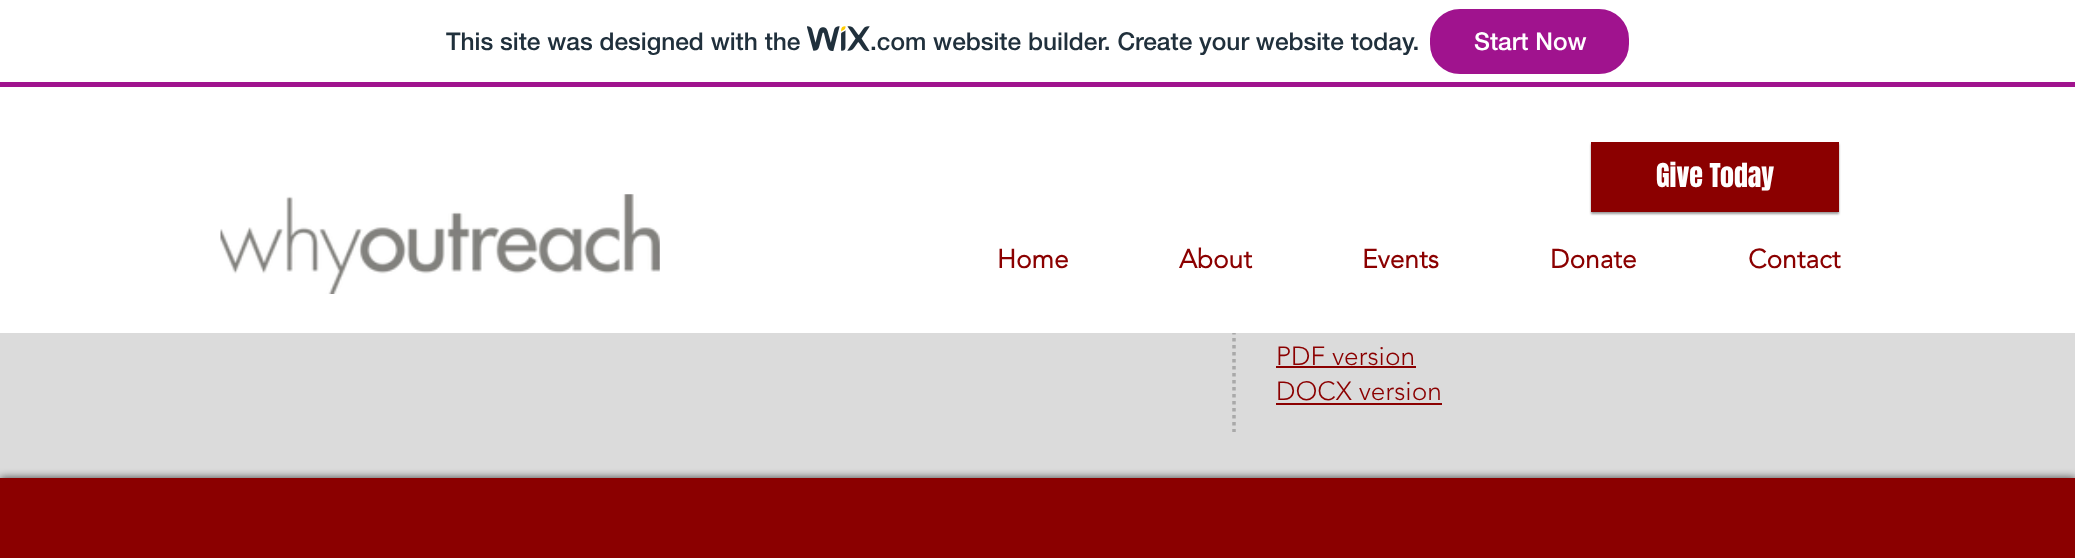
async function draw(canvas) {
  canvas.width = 2075
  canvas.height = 558
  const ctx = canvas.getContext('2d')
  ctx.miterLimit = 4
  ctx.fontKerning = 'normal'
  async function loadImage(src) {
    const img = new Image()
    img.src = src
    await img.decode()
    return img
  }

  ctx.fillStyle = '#dbdbdb'
  ctx.fillRect(0, 0, 2075, 558)
  ctx.beginPath()
  ctx.moveTo(1234, -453)
  ctx.lineTo(1234, 432)
  ctx.strokeStyle = '#a9a9a9'
  ctx.lineWidth = 3.5
  ctx.setLineDash([3.5, 3.5])
  ctx.stroke()
  ctx.fillStyle = '#fff'
  ctx.fillRect(0, 0, 2075, 333)
  ctx.fillStyle = '#a0138e'
  ctx.fillRect(0, 82, 2075, 5)
  ctx.font = '500 24.5px "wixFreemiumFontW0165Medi"'
  ctx.fillStyle = '#20303c'
  ctx.fillText('This site was designed with the', 446, 50)
  ctx.drawImage(await loadImage('image0.png'), 807, 26, 63, 26)
  ctx.fillText('.com website builder. Create your website today.', 870, 50)
  ctx.fillStyle = '#a0138e'
  ctx.beginPath()
  ctx.roundRect(1431, 10, 197, 63, 29)
  ctx.fill()
  ctx.strokeStyle = '#a0138e'
  ctx.lineWidth = 2
  ctx.setLineDash([])
  ctx.stroke()
  ctx.fillStyle = '#fff'
  ctx.fillText('Start Now', 1474, 50)
  ctx.fillStyle = '#00000066'
  ctx.filter = 'blur(1px)'
  ctx.beginPath()
  ctx.rect(1591, 144, 248, 70)
  ctx.fill()
  ctx.filter = 'none'
  ctx.fillStyle = '#8b0000'
  ctx.fillRect(1591, 142, 248, 70)
  ctx.font = '28px Anton'
  ctx.fillStyle = '#fff'
  ctx.fillText('Give Today', 1656, 187)
  ctx.drawImage(await loadImage('image1.png'), 220, 194, 440, 100)
  ctx.font = 'bold 26.25px "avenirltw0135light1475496"'
  ctx.fillStyle = '#8b0000'
  ctx.fillText('Home', 997, 268)
  ctx.fillText('About', 1179, 268)
  ctx.fillText('Events', 1362, 268)
  ctx.fillText('Donate', 1550, 268)
  ctx.fillText('Contact', 1748, 268)
  ctx.font = '300 26.25px "avenirltw0135light1475496"'
  ctx.fillText('PDF version', 1276, 365)
  ctx.fillRect(1276, 366, 140, 2)
  ctx.fillText('DOCX version', 1276, 400)
  ctx.fillRect(1276, 403, 166, 2)
  ctx.fillStyle = '#000000b3'
  ctx.filter = 'blur(4.5px)'
  ctx.beginPath()
  ctx.rect(0, 478, 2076, 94)
  ctx.fill()
  ctx.filter = 'none'
  ctx.fillStyle = '#8b0000'
  ctx.fillRect(0, 478, 2075, 80)
}

draw(document.querySelector('canvas'))
